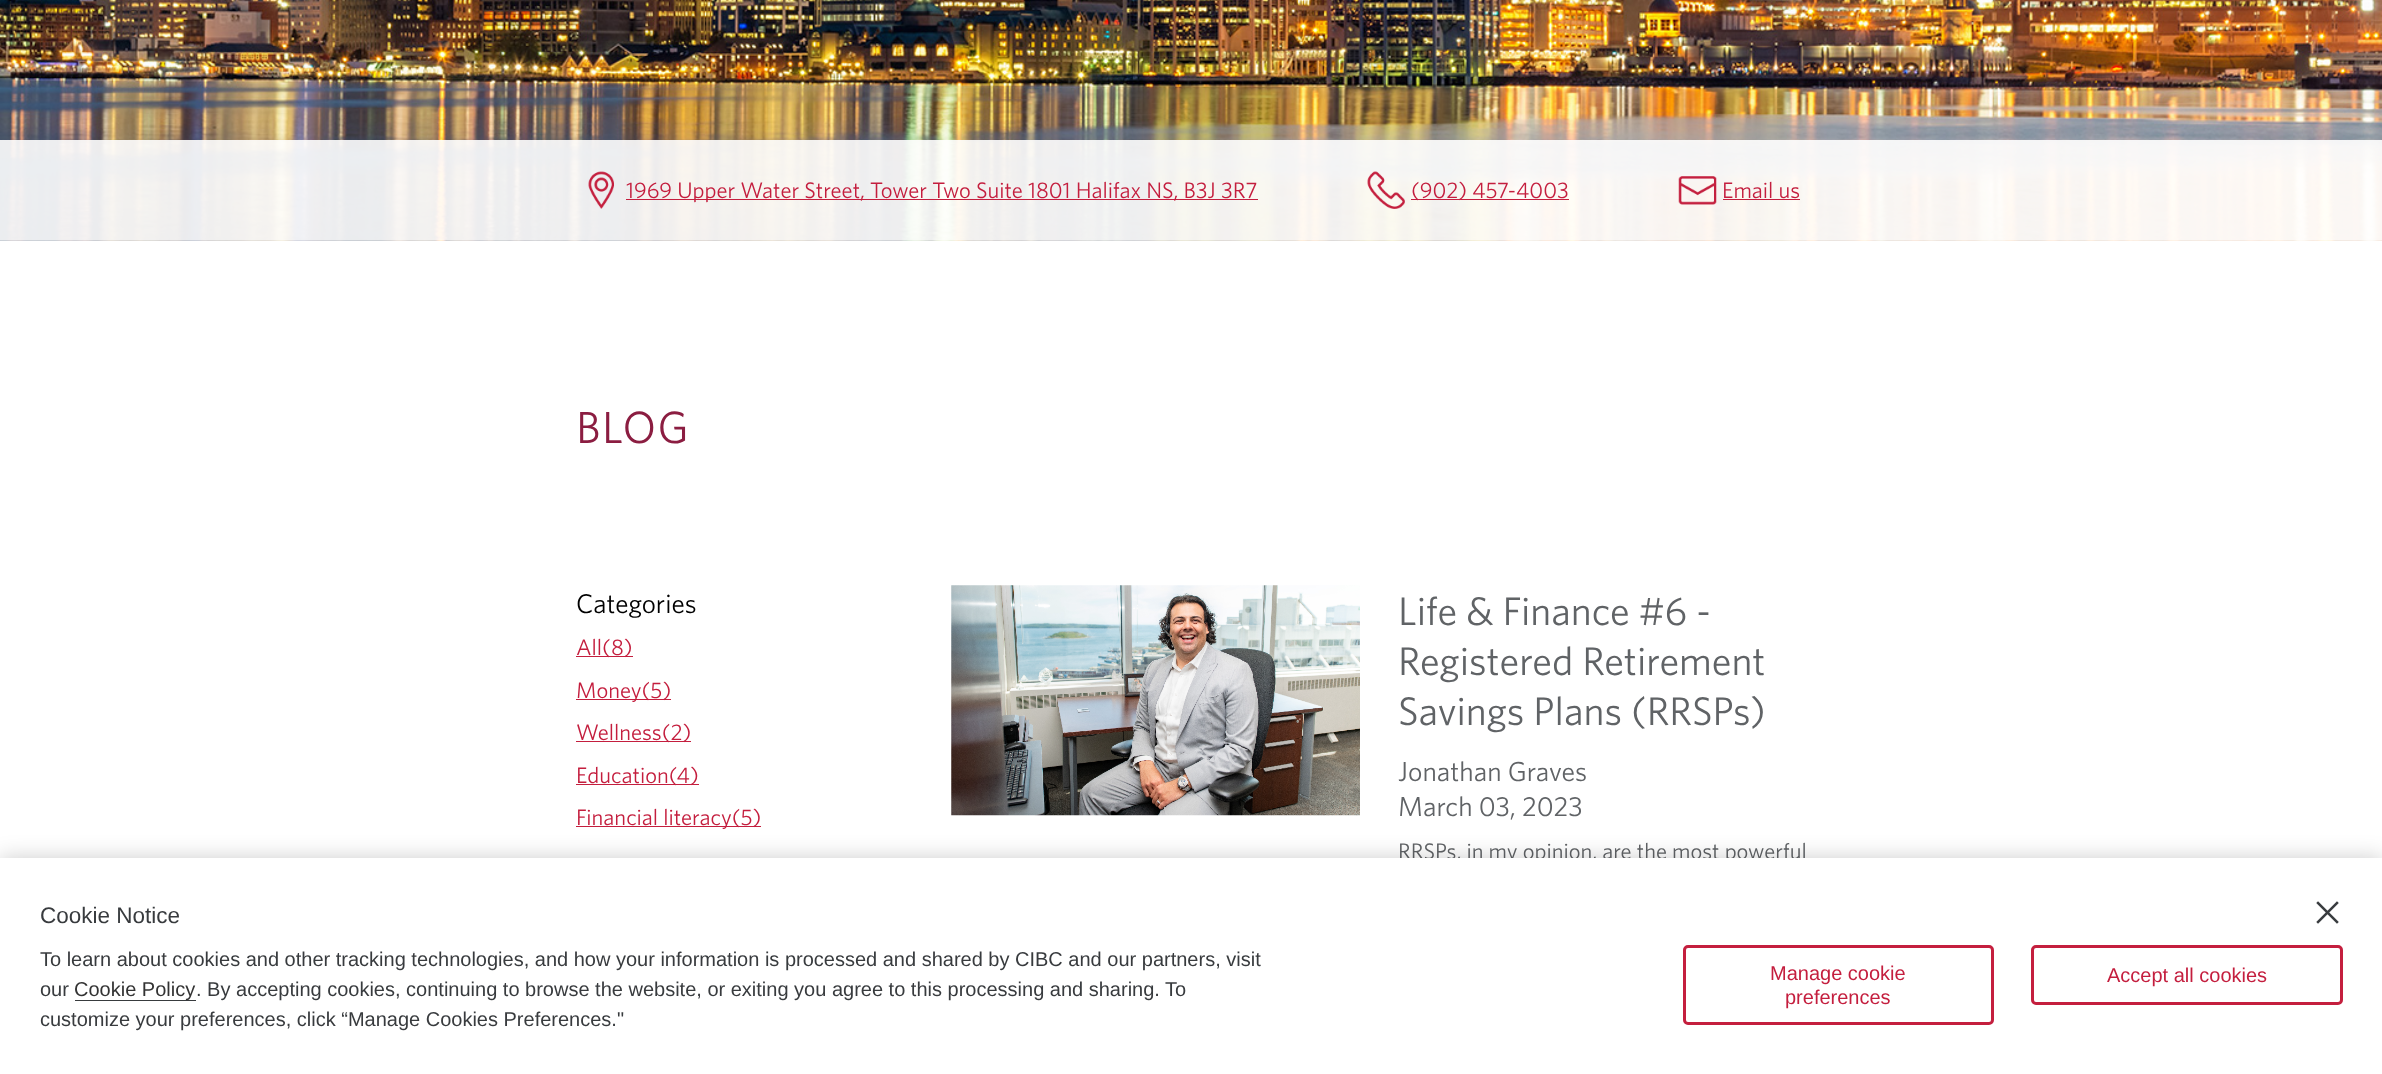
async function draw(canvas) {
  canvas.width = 2382
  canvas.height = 1074
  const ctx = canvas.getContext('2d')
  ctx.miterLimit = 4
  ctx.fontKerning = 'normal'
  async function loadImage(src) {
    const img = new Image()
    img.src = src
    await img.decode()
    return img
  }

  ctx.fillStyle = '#fff'
  ctx.fillRect(0, 0, 2382, 1074)
  ctx.drawImage(await loadImage('image0.png'), 0, 0, 2382, 241)
  ctx.fillStyle = '#ffffffe6'
  ctx.fillRect(0, 140, 2382, 100)
  ctx.drawImage(await loadImage('image1.png'), 588, 171, 26, 38)
  ctx.fillStyle = '#c41e3e'
  ctx.fillRect(626, 199, 632, 1)
  ctx.font = '300 22.5px "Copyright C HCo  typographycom"'
  ctx.fillText('1969 Upper Water Street, Tower Two Suite 1801 Halifax NS, B3J 3R7', 626, 198)
  ctx.drawImage(await loadImage('image2.png'), 1367, 171, 38, 38)
  ctx.fillRect(1411, 199, 158, 1)
  ctx.fillText('(902) 457-4003', 1411, 198)
  ctx.drawImage(await loadImage('image3.png'), 1678, 176, 39, 29)
  ctx.fillText('Email us', 1722, 198)
  ctx.fillRect(1723, 199, 77, 1)
  ctx.letterSpacing = '1.5px'
  ctx.font = '300 45px "Copyright C HCo  typographycom"'
  ctx.fillStyle = '#8b1d41'
  ctx.fillText('BLOG', 576, 443)
  ctx.letterSpacing = '0px'
  ctx.font = '300 27px "Copyright C HCo  typographycom"'
  ctx.fillStyle = '#000'
  ctx.fillText('Categories', 576, 613)
  ctx.fillStyle = '#c41e3e'
  ctx.fillRect(576, 656, 57, 1)
  ctx.font = '300 22.5px "Copyright C HCo  typographycom"'
  ctx.fillText('All(8)', 576, 655)
  ctx.fillRect(576, 699, 95, 1)
  ctx.fillText('Money(5)', 576, 698)
  ctx.fillRect(576, 741, 115, 1)
  ctx.fillText('Wellness(2)', 576, 740)
  ctx.fillRect(576, 784, 123, 1)
  ctx.fillText('Education(4)', 576, 783)
  ctx.fillRect(576, 826, 185, 1)
  ctx.fillText('Financial literacy(5)', 576, 825)
  ctx.drawImage(await loadImage('image4.png'), 951, 585, 409, 231)
  ctx.font = '300 40px "Copyright C HCo  typographycom"'
  ctx.fillStyle = '#606366'
  ctx.fillText('Life & Finance #6 -', 1398, 625)
  ctx.fillText('Registered Retirement', 1398, 675)
  ctx.fillText('Savings Plans (RRSPs)', 1398, 725)
  ctx.font = '300 27.5px "Copyright C HCo  typographycom"'
  ctx.fillText('Jonathan Graves', 1398, 781)
  ctx.fillText('March 03, 2023', 1398, 816)
  ctx.font = '300 22.5px "Copyright C HCo  typographycom"'
  ctx.fillText('RRSPs, in my opinion, are the most powerful', 1398, 859)
  ctx.fillStyle = '#00000033'
  ctx.filter = 'blur(11px)'
  ctx.beginPath()
  ctx.rect(0, 858, 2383, 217)
  ctx.fill()
  ctx.filter = 'none'
  ctx.fillStyle = '#fff'
  ctx.fillRect(0, 858, 2382, 216)
  ctx.font = '22.5px Liberation Sans'
  ctx.fillStyle = '#383b3e'
  ctx.fillText('Cookie Notice', 40, 923)
  ctx.font = '20px Liberation Sans'
  ctx.fillText('To learn about cookies and other tracking technologies, and how your information is processed and shared by CIBC and our partners, visit', 40, 966)
  ctx.fillText('our', 40, 996)
  ctx.fillRect(75, 1000, 121, 1)
  ctx.fillStyle = '#333'
  ctx.fillText('Cookie Policy', 74, 996)
  ctx.fillStyle = '#383b3e'
  ctx.fillText('. By accepting cookies, continuing to browse the website, or exiting you agree to this processing and sharing. To', 196, 996)
  ctx.fillText('customize your preferences, click “Manage Cookies Preferences."', 40, 1026)
  ctx.beginPath()
  ctx.roundRect(1684.5, 946.5, 308, 77, 3.5)
  ctx.strokeStyle = '#c41f3e'
  ctx.lineWidth = 3
  ctx.stroke()
  ctx.fillStyle = '#c41e3e'
  ctx.fillText('Manage cookie', 1770, 980)
  ctx.fillText('preferences', 1785, 1004)
  ctx.beginPath()
  ctx.roundRect(2032.5, 946.5, 309, 57, 3.5)
  ctx.stroke()
  ctx.fillText('Accept all cookies', 2107, 982)
  ctx.drawImage(await loadImage('image5.png'), 2316, 901, 23, 23)
}

draw(document.querySelector('canvas'))
